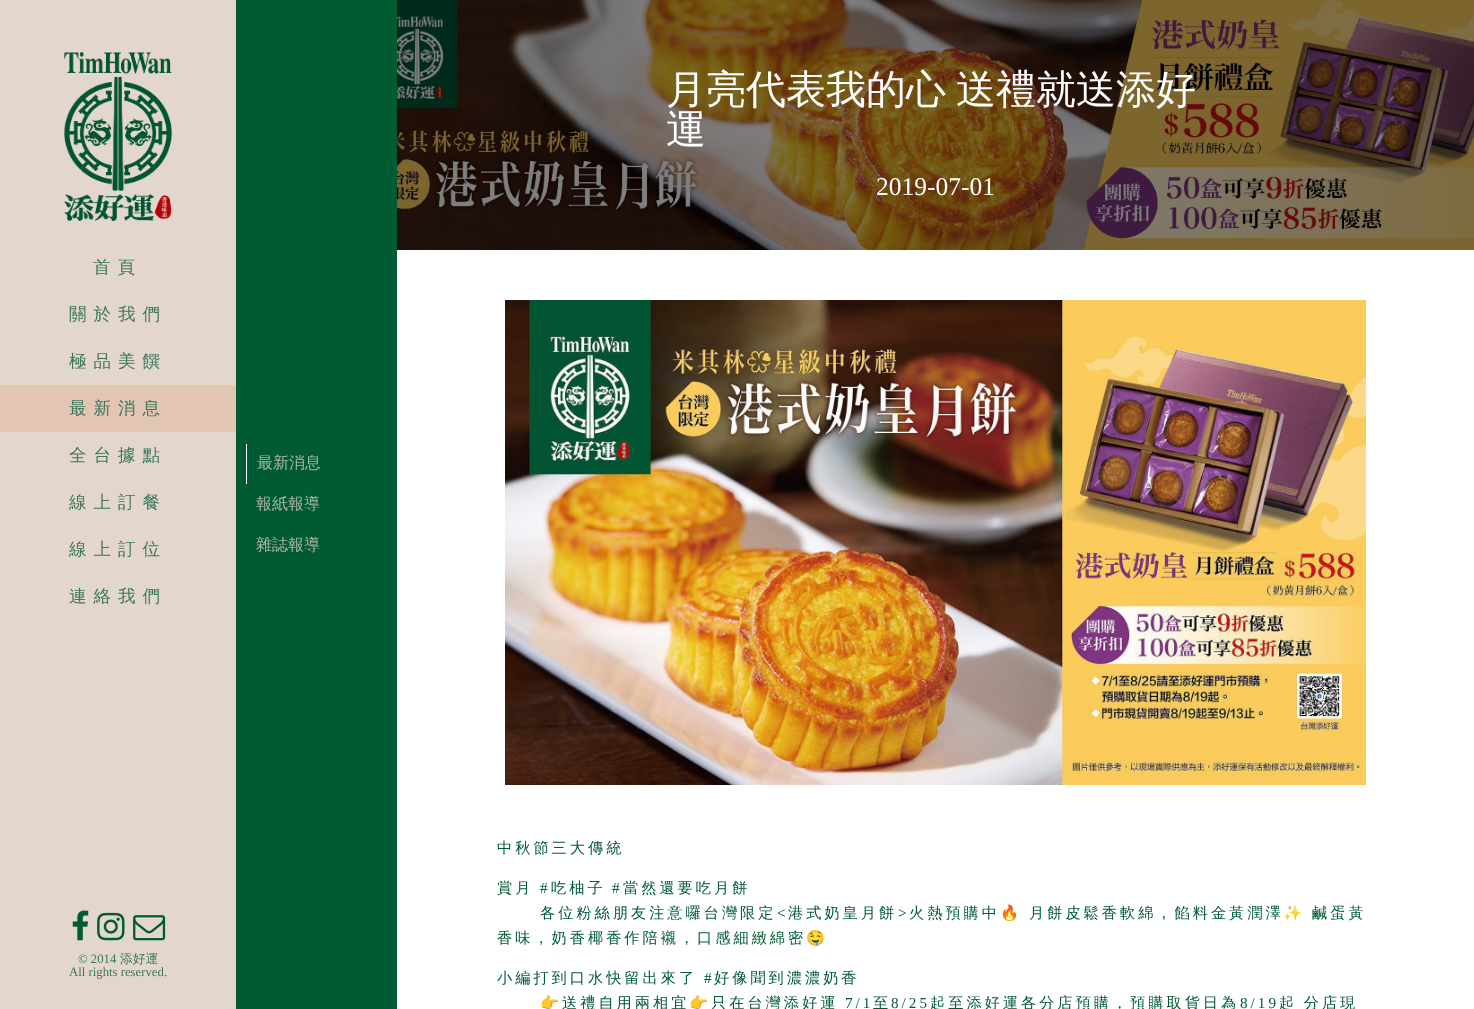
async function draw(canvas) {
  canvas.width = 1474
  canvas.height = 1009
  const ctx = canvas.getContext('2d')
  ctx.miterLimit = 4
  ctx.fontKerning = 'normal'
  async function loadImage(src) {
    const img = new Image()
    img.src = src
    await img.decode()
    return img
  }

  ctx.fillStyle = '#fff'
  ctx.fillRect(0, 0, 1474, 1009)
  ctx.fillStyle = '#e3d6cd'
  ctx.fillRect(0, 0, 236, 1009)
  ctx.drawImage(await loadImage('image0.png'), 64, 52, 108, 169)
  ctx.letterSpacing = '7px'
  ctx.font = '500 17.5px WenQuanYi Zen Hei'
  ctx.fillStyle = '#3d775c'
  ctx.fillText('首頁', 93, 273)
  ctx.fillText('關於我們', 69, 320)
  ctx.fillText('極品美饌', 69, 367)
  ctx.fillStyle = '#e3c5b4'
  ctx.fillRect(0, 385, 236, 47)
  ctx.fillStyle = '#3d775c'
  ctx.fillText('最新消息', 69, 414)
  ctx.fillText('全台據點', 69, 461)
  ctx.fillText('線上訂餐', 69, 508)
  ctx.fillText('線上訂位', 69, 555)
  ctx.fillText('連絡我們', 69, 602)
  ctx.drawImage(await loadImage('image1.png'), 72, 910, 17, 31)
  ctx.drawImage(await loadImage('image2.png'), 97, 912, 28, 29)
  ctx.drawImage(await loadImage('image3.png'), 133, 915, 33, 26)
  ctx.letterSpacing = '0px'
  ctx.font = '12.75px Liberation Serif'
  ctx.fillText('© 2014', 78, 963)
  ctx.font = '500 12.75px WenQuanYi Zen Hei'
  ctx.fillText('添好運', 120, 963)
  ctx.font = '12.75px Liberation Serif'
  ctx.fillText('All rights reserved.', 69, 976)
  ctx.fillStyle = '#005b34'
  ctx.fillRect(236, 0, 161, 1009)
  ctx.fillStyle = '#fff'
  ctx.fillRect(246, 444, 1, 40)
  ctx.font = '500 16px WenQuanYi Zen Hei'
  ctx.fillStyle = '#a9b5a6'
  ctx.fillText('最新消息', 257, 468)
  ctx.fillText('報紙報導', 256, 509)
  ctx.fillText('雜誌報導', 256, 550)
  ctx.drawImage(await loadImage('image4.png'), 397, 0, 1077, 250)
  ctx.wordSpacing = '-2px'
  ctx.font = '500 40px WenQuanYi Zen Hei'
  ctx.fillStyle = '#fff'
  ctx.fillText('月亮代表我的心 送禮就送添好', 666, 103)
  ctx.wordSpacing = '0px'
  ctx.fillText('運', 666, 143)
  ctx.font = '25.5px Liberation Serif'
  ctx.fillText('2019-07-01', 876, 195)
  ctx.drawImage(await loadImage('image5.png'), 505, 300, 861, 485)
  ctx.letterSpacing = '3px'
  ctx.font = '500 15.2px WenQuanYi Zen Hei'
  ctx.fillStyle = '#005b34'
  ctx.fillText('中秋節三大傳統', 497, 853)
  ctx.fillText('賞月', 497, 893)
  ctx.font = '15.2px Liberation Serif'
  ctx.fillText('#', 540, 893)
  ctx.font = '500 15.2px WenQuanYi Zen Hei'
  ctx.fillText('吃柚子', 551, 893)
  ctx.font = '15.2px Liberation Serif'
  ctx.fillText('#', 612, 893)
  ctx.font = '500 15.2px WenQuanYi Zen Hei'
  ctx.fillText('當然還要吃月餅', 623, 893)
  ctx.fillText('各位粉絲朋友注意囉台灣限定', 540, 918)
  ctx.font = '15.2px Liberation Serif'
  ctx.fillText('<', 777, 918)
  ctx.font = '500 15.2px WenQuanYi Zen Hei'
  ctx.fillText('港式奶皇月餅', 788, 918)
  ctx.font = '15.2px Liberation Serif'
  ctx.fillText('>', 898, 918)
  ctx.font = '500 15.2px WenQuanYi Zen Hei'
  ctx.fillText('火熱預購中', 909, 918)
  ctx.font = '15.2px Noto Color Emoji'
  ctx.fillText('🔥', 1000, 918)
  ctx.font = '500 15.2px WenQuanYi Zen Hei'
  ctx.fillText('月餅皮鬆香軟綿，餡料金黃潤澤', 1029, 918)
  ctx.font = '15.2px Noto Color Emoji'
  ctx.fillText('✨', 1283, 918)
  ctx.font = '500 15.2px WenQuanYi Zen Hei'
  ctx.fillText('鹹蛋黃', 1312, 918)
  ctx.fillText('香味，奶香椰香作陪襯，口感細緻綿密', 497, 943)
  ctx.font = '15.2px Noto Color Emoji'
  ctx.fillText('🤤', 806, 943)
  ctx.font = '500 15.2px WenQuanYi Zen Hei'
  ctx.fillText('小編打到口水快留出來了', 497, 983)
  ctx.font = '15.2px Liberation Serif'
  ctx.fillText('#', 704, 983)
  ctx.font = '500 15.2px WenQuanYi Zen Hei'
  ctx.fillText('好像聞到濃濃奶香', 714, 983)
  ctx.font = '15.2px Noto Color Emoji'
  ctx.fillText('👉', 540, 1008)
  ctx.font = '500 15.2px WenQuanYi Zen Hei'
  ctx.fillText('送禮自用兩相宜', 562, 1008)
  ctx.font = '15.2px Noto Color Emoji'
  ctx.fillText('👉', 689, 1008)
  ctx.font = '500 15.2px WenQuanYi Zen Hei'
  ctx.fillText('只在台灣添好運', 711, 1008)
  ctx.font = '15.2px Liberation Serif'
  ctx.fillText('7/1', 845, 1008)
  ctx.font = '500 15.2px WenQuanYi Zen Hei'
  ctx.fillText('至', 873, 1008)
  ctx.font = '15.2px Liberation Serif'
  ctx.fillText('8/25', 891, 1008)
  ctx.font = '500 15.2px WenQuanYi Zen Hei'
  ctx.fillText('起至添好運各分店預購，預購取貨日為', 930, 1008)
  ctx.font = '15.2px Liberation Serif'
  ctx.fillText('8/19', 1240, 1008)
  ctx.wordSpacing = '-1px'
  ctx.font = '500 15.2px WenQuanYi Zen Hei'
  ctx.fillText('起 分店現', 1279, 1008)
}

draw(document.querySelector('canvas'))
